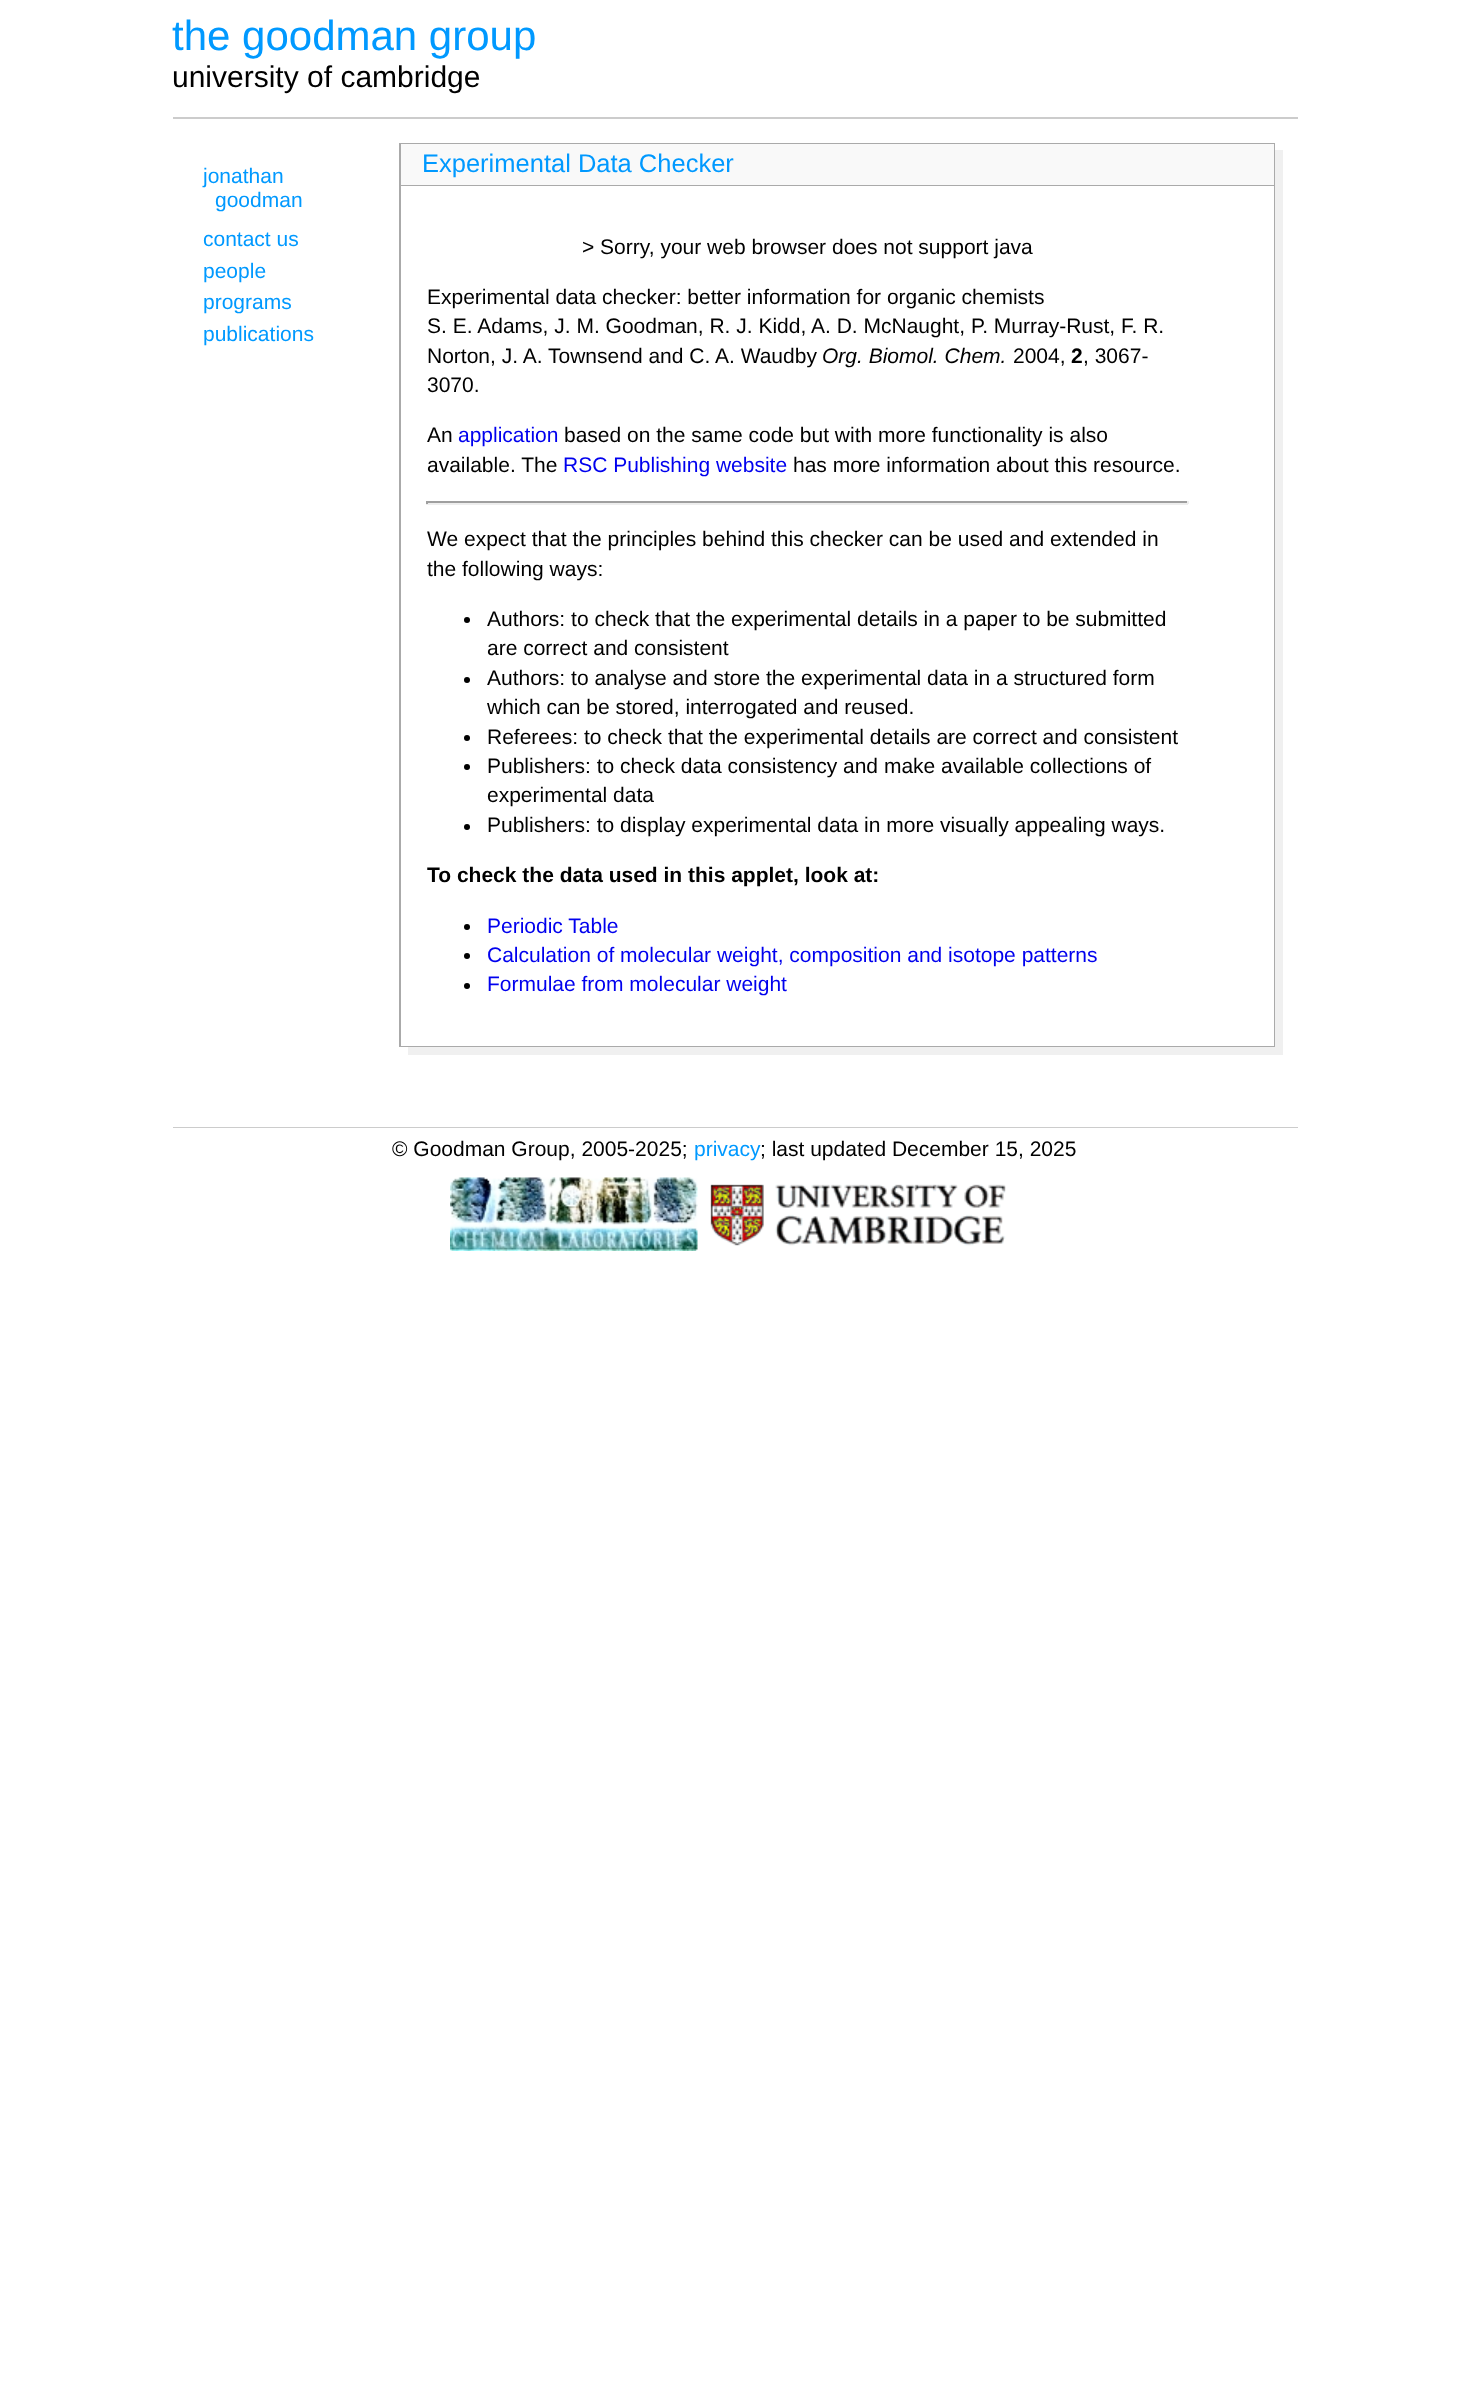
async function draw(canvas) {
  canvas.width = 1468
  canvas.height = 2387
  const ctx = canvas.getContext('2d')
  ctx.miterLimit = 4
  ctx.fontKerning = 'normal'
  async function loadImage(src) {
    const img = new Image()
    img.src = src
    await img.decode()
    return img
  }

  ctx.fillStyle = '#fff'
  ctx.fillRect(0, 0, 1468, 2387)
  ctx.font = '42px Liberation Sans'
  ctx.fillStyle = '#09f'
  ctx.fillText('the goodman group', 172, 50)
  ctx.font = '30px Liberation Sans'
  ctx.fillStyle = '#000'
  ctx.fillText('university of cambridge', 172, 87)
  ctx.fillStyle = '#ccc'
  ctx.fillRect(173, 117, 1125, 2)
  ctx.font = '21px Liberation Sans'
  ctx.fillStyle = '#09f'
  ctx.fillText('jonathan', 203, 183)
  ctx.fillText('goodman', 215, 207)
  ctx.fillText('contact us', 203, 246)
  ctx.fillText('people', 203, 278)
  ctx.fillText('programs', 203, 309)
  ctx.fillText('publications', 203, 341)
  ctx.fillStyle = '#aaa'
  ctx.fillRect(399, 143, 876, 1)
  ctx.fillRect(399, 144, 2, 903)
  ctx.fillStyle = '#f9f9f9'
  ctx.fillRect(401, 144, 873, 41)
  ctx.font = '25.5px Liberation Sans'
  ctx.fillStyle = '#09f'
  ctx.fillText('Experimental Data Checker', 422, 172)
  ctx.fillStyle = '#aaa'
  ctx.fillRect(1274, 144, 1, 41)
  ctx.fillStyle = '#f0f0f0'
  ctx.fillRect(1275, 150, 8, 35)
  ctx.fillStyle = '#aaa'
  ctx.fillRect(401, 185, 875, 1)
  ctx.fillStyle = '#f0f0f0'
  ctx.fillRect(1275, 185, 8, 861)
  ctx.font = '21px Liberation Sans'
  ctx.fillStyle = '#000'
  ctx.fillText('> Sorry, your web browser does not support java', 582, 254)
  ctx.fillText('Experimental data checker: better information for organic chemists', 427, 304)
  ctx.fillText('S. E. Adams, J. M. Goodman, R. J. Kidd, A. D. McNaught, P. Murray-Rust, F. R.', 427, 333)
  ctx.fillText('Norton, J. A. Townsend and C. A. Waudby', 427, 363)
  ctx.font = 'italic 21px Liberation Sans'
  ctx.fillText('Org. Biomol. Chem.', 822, 363)
  ctx.font = '21px Liberation Sans'
  ctx.fillText('2004,', 1013, 363)
  ctx.font = 'bold 21px Liberation Sans'
  ctx.fillText('2', 1071, 363)
  ctx.font = '21px Liberation Sans'
  ctx.fillText(', 3067-', 1083, 363)
  ctx.fillText('3070.', 427, 392)
  ctx.fillText('An', 427, 442)
  ctx.fillStyle = '#00e'
  ctx.fillText('application', 458, 442)
  ctx.fillStyle = '#000'
  ctx.fillText('based on the same code but with more functionality is also', 564, 442)
  ctx.fillText('available. The', 427, 472)
  ctx.fillStyle = '#00e'
  ctx.fillText('RSC Publishing website', 563, 472)
  ctx.fillStyle = '#000'
  ctx.fillText('has more information about this resource.', 793, 472)
  ctx.fillStyle = '#9f9f9f'
  ctx.fillRect(426, 501, 762, 2)
  ctx.fillStyle = '#eee'
  ctx.fillRect(1187, 501, 2, 3)
  ctx.fillRect(426, 503, 762, 2)
  ctx.fillStyle = '#9f9f9f'
  ctx.fillRect(426, 501, 2, 3)
  ctx.fillStyle = '#000'
  ctx.fillText('We expect that the principles behind this checker can be used and extended in', 427, 546)
  ctx.fillText('the following ways:', 427, 576)
  ctx.beginPath()
  ctx.arc(467, 620, 3, 0, 2 * Math.PI)
  ctx.fill()
  ctx.fillText('Authors: to check that the experimental details in a paper to be submitted', 487, 626)
  ctx.fillText('are correct and consistent', 487, 655)
  ctx.beginPath()
  ctx.arc(467, 680, 3, 0, 2 * Math.PI)
  ctx.fill()
  ctx.fillText('Authors: to analyse and store the experimental data in a structured form', 487, 685)
  ctx.fillText('which can be stored, interrogated and reused.', 487, 714)
  ctx.beginPath()
  ctx.arc(467, 738, 3, 0, 2 * Math.PI)
  ctx.fill()
  ctx.fillText('Referees: to check that the experimental details are correct and consistent', 487, 744)
  ctx.beginPath()
  ctx.arc(467, 767, 3, 0, 2 * Math.PI)
  ctx.fill()
  ctx.fillText('Publishers: to check data consistency and make available collections of', 487, 773)
  ctx.fillText('experimental data', 487, 802)
  ctx.beginPath()
  ctx.arc(467, 827, 3, 0, 2 * Math.PI)
  ctx.fill()
  ctx.fillText('Publishers: to display experimental data in more visually appealing ways.', 487, 832)
  ctx.font = 'bold 21px Liberation Sans'
  ctx.fillText('To check the data used in this applet, look at:', 427, 882)
  ctx.beginPath()
  ctx.arc(467, 927, 3, 0, 2 * Math.PI)
  ctx.fill()
  ctx.font = '21px Liberation Sans'
  ctx.fillStyle = '#00e'
  ctx.fillText('Periodic Table', 487, 933)
  ctx.fillStyle = '#000'
  ctx.beginPath()
  ctx.arc(467, 956, 3, 0, 2 * Math.PI)
  ctx.fill()
  ctx.fillStyle = '#00e'
  ctx.fillText('Calculation of molecular weight, composition and isotope patterns', 487, 962)
  ctx.fillStyle = '#000'
  ctx.beginPath()
  ctx.arc(467, 986, 3, 0, 2 * Math.PI)
  ctx.fill()
  ctx.fillStyle = '#00e'
  ctx.fillText('Formulae from molecular weight', 487, 991)
  ctx.fillStyle = '#aaa'
  ctx.fillRect(1274, 186, 1, 860)
  ctx.fillRect(401, 1046, 875, 1)
  ctx.fillStyle = '#f0f0f0'
  ctx.fillRect(1275, 1046, 8, 1)
  ctx.fillRect(408, 1047, 875, 8)
  ctx.fillStyle = '#ccc'
  ctx.fillRect(173, 1127, 1125, 1)
  ctx.fillStyle = '#000'
  ctx.fillText('© Goodman Group, 2005-2025;', 392, 1156)
  ctx.fillStyle = '#09f'
  ctx.fillText('privacy', 694, 1156)
  ctx.fillStyle = '#000'
  ctx.fillText('; last updated December 15, 2025', 760, 1156)
  ctx.drawImage(await loadImage('image0.png'), 450, 1177, 248, 74)
  ctx.drawImage(await loadImage('image1.png'), 710, 1184, 296, 62)
}

draw(document.querySelector('canvas'))
